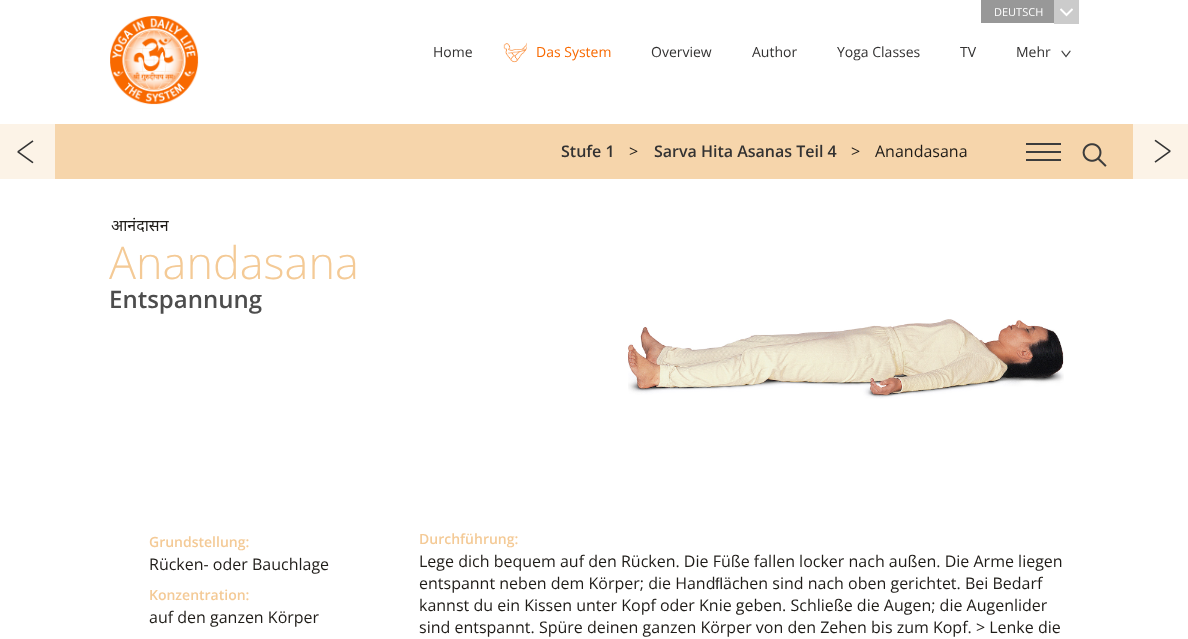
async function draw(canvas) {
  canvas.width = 1188
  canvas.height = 639
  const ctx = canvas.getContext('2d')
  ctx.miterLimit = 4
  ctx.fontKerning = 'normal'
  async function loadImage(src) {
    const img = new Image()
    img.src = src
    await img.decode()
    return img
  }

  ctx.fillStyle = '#fff'
  ctx.fillRect(0, 0, 1188, 639)
  ctx.fillStyle = '#989898'
  ctx.fillRect(981, 0, 73, 23)
  ctx.font = '11px Open Sans'
  ctx.fillStyle = '#fff'
  ctx.fillText('DEUTSCH', 994, 16)
  ctx.fillStyle = '#cbcbcb'
  ctx.fillRect(1054, 0, 25, 24)
  ctx.drawImage(await loadImage('image0.png'), 1060, 8, 13, 9)
  ctx.drawImage(await loadImage('image1.png'), 110, 16, 89, 89)
  ctx.font = '14px Open Sans'
  ctx.fillStyle = '#333232'
  ctx.fillText('Home', 433, 57)
  ctx.drawImage(await loadImage('image2.png'), 503, 42, 24, 21)
  ctx.fillStyle = '#f86900'
  ctx.fillText('Das System', 536, 57)
  ctx.fillStyle = '#333232'
  ctx.fillText('Overview', 651, 57)
  ctx.fillText('Author', 752, 57)
  ctx.fillText('Yoga Classes', 837, 57)
  ctx.fillText('TV', 960, 57)
  ctx.fillText('Mehr', 1016, 57)
  ctx.drawImage(await loadImage('image3.png'), 1061, 50, 10, 8)
  ctx.fillStyle = '#f6d5ab'
  ctx.fillRect(55, 124, 1078, 55)
  ctx.font = '600 16px Open Sans'
  ctx.fillStyle = '#333232'
  ctx.fillText('Stufe 1', 561, 157)
  ctx.font = '16px Open Sans'
  ctx.fillStyle = '#1f1c18'
  ctx.fillText('>', 629, 157)
  ctx.font = '600 16px Open Sans'
  ctx.fillStyle = '#333232'
  ctx.fillText('Sarva Hita Asanas Teil 4', 654, 157)
  ctx.font = '16px Open Sans'
  ctx.fillStyle = '#1f1c18'
  ctx.fillText('>', 851, 157)
  ctx.fillText('Anandasana', 875, 157)
  ctx.fillStyle = '#3c3c3c'
  ctx.fillRect(1026, 151, 35, 2)
  ctx.fillRect(1026, 143, 35, 2)
  ctx.fillRect(1026, 159, 35, 2)
  ctx.drawImage(await loadImage('image4.png'), 1082, 143, 25, 24)
  ctx.fillStyle = '#fbeedd'
  ctx.fillRect(0, 124, 55, 55)
  ctx.drawImage(await loadImage('image5.png'), 0, 124, 55, 55)
  ctx.fillRect(1133, 124, 55, 55)
  ctx.drawImage(await loadImage('image6.png'), 1133, 124, 55, 55)
  ctx.font = '16px Noto Sans'
  ctx.fillStyle = '#1f1c18'
  ctx.fillText('आनंदासन', 111, 231)
  ctx.font = '300 45px Open Sans'
  ctx.fillStyle = '#f4ca96'
  ctx.fillText('Anandasana', 109, 279)
  ctx.font = '600 24px Open Sans'
  ctx.fillStyle = '#4d4d4d'
  ctx.fillText('Entspannung', 109, 308)
  ctx.drawImage(await loadImage('image7.png'), 628, 319, 436, 80)
  ctx.font = '600 14px Open Sans'
  ctx.fillStyle = '#f4ca96'
  ctx.fillText('Grundstellung:', 149, 547)
  ctx.font = '16px Open Sans'
  ctx.fillStyle = '#1f1c18'
  ctx.fillText('Rücken- oder Bauchlage', 149, 570)
  ctx.font = '600 14px Open Sans'
  ctx.fillStyle = '#f4ca96'
  ctx.fillText('Konzentration:', 149, 600)
  ctx.font = '16px Open Sans'
  ctx.fillStyle = '#1f1c18'
  ctx.fillText('auf den ganzen Körper', 149, 623)
  ctx.font = '600 14px Open Sans'
  ctx.fillStyle = '#f4ca96'
  ctx.fillText('Durchführung:', 419, 544)
  ctx.font = '16px Open Sans'
  ctx.fillStyle = '#1f1c18'
  ctx.fillText('Lege dich bequem auf den Rücken. Die Füße fallen locker nach außen. Die Arme liegen', 419, 567)
  ctx.fillText('entspannt neben dem Körper; die Hand', 419, 589)
  ctx.font = '16px Liberation Sans'
  ctx.fillText('ﬂ', 715, 589)
  ctx.font = '16px Open Sans'
  ctx.fillText('ächen sind nach oben gerichtet. Bei Bedarf', 723, 589)
  ctx.fillText('kannst du ein Kissen unter Kopf oder Knie geben. Schließe die Augen; die Augenlider', 419, 611)
  ctx.fillText('sind entspannt. Spüre deinen ganzen Körper von den Zehen bis zum Kopf. > Lenke die', 419, 633)
}

draw(document.querySelector('canvas'))
